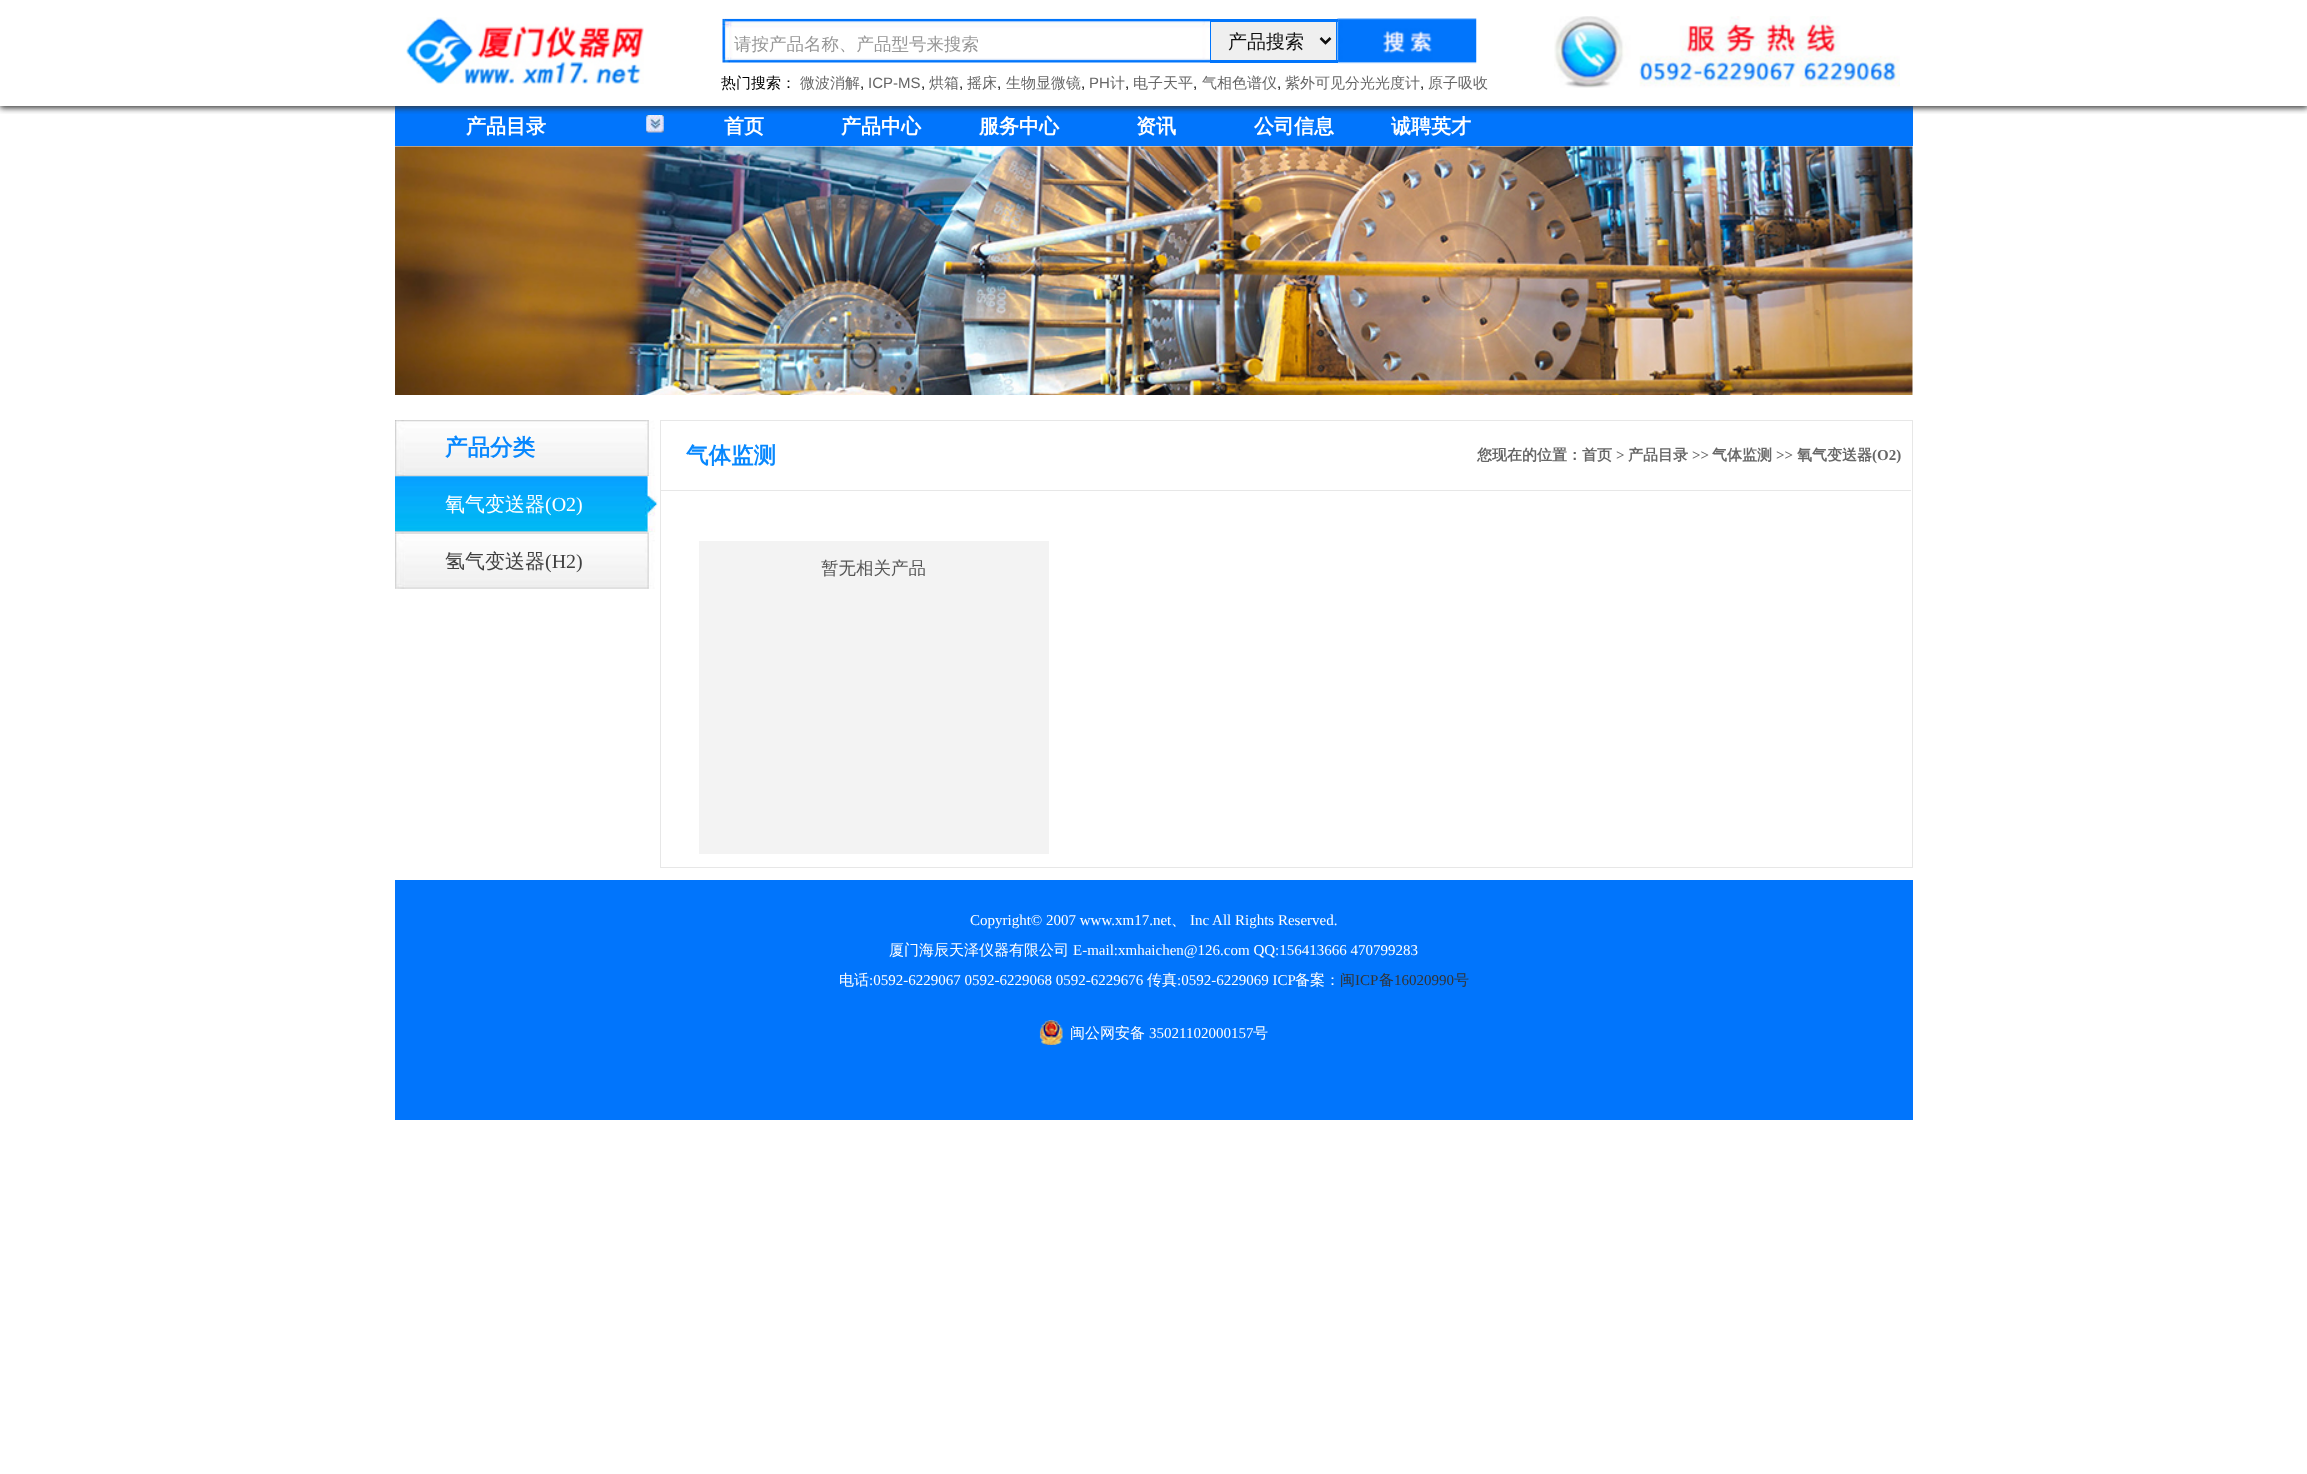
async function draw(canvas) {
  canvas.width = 2307
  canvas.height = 1474
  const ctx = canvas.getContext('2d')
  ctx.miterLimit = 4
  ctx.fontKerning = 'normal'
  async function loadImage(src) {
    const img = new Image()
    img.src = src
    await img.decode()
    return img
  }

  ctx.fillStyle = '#fff'
  ctx.fillRect(0, 0, 2307, 1474)
  ctx.fillStyle = '#0175fc'
  ctx.fillRect(395, 106, 1518, 40)
  ctx.drawImage(await loadImage('image4.png'), 646, 115, 18, 18)
  ctx.save()
  ctx.beginPath()
  ctx.rect(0, 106, 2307, 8)
  ctx.clip()
  ctx.fillStyle = '#333'
  ctx.filter = 'blur(3px)'
  ctx.beginPath()
  ctx.rect(0, 1, 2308, 107)
  ctx.fill()
  ctx.filter = 'none'
  ctx.restore()
  ctx.drawImage(await loadImage('image0.png'), 406, 17, 238, 67)
  ctx.drawImage(await loadImage('image1.png'), 722, 18, 488, 45)
  ctx.font = '500 17.5px WenQuanYi Zen Hei'
  ctx.fillStyle = '#979797'
  ctx.fillText('请按产品名称、产品型号来搜索', 734, 50)
  ctx.fillStyle = '#efefef'
  ctx.fillRect(1211, 22, 125, 38)
  ctx.fillStyle = '#0175fc'
  ctx.fillRect(1210, 19, 128, 3)
  ctx.fillRect(1336, 19, 1, 44)
  ctx.fillRect(1210, 60, 128, 3)
  ctx.fillRect(1210, 19, 1, 44)
  ctx.beginPath()
  ctx.moveTo(1320.5, 38)
  ctx.lineTo(1325.5, 43)
  ctx.lineTo(1330.5, 38)
  ctx.strokeStyle = '#0e0e0e'
  ctx.lineWidth = 2.5
  ctx.stroke()
  ctx.font = '500 19px WenQuanYi Zen Hei'
  ctx.fillStyle = '#0e0e0e'
  ctx.fillText('产品搜索', 1228, 48)
  ctx.drawImage(await loadImage('image2.png'), 1337, 18, 140, 46)
  ctx.drawImage(await loadImage('image3.png'), 1554, 16, 346, 72)
  ctx.font = '500 15px WenQuanYi Zen Hei'
  ctx.fillStyle = '#000'
  ctx.fillText('热门搜索：', 721, 88)
  ctx.fillStyle = '#666'
  ctx.fillText('微波消解', 800, 88)
  ctx.font = '15px Liberation Sans'
  ctx.fillStyle = '#000'
  ctx.fillText(',', 860, 88)
  ctx.fillStyle = '#666'
  ctx.fillText('ICP-MS', 868, 88)
  ctx.fillStyle = '#000'
  ctx.fillText(',', 921, 88)
  ctx.font = '500 15px WenQuanYi Zen Hei'
  ctx.fillStyle = '#666'
  ctx.fillText('烘箱', 929, 88)
  ctx.font = '15px Liberation Sans'
  ctx.fillStyle = '#000'
  ctx.fillText(',', 959, 88)
  ctx.font = '500 15px WenQuanYi Zen Hei'
  ctx.fillStyle = '#666'
  ctx.fillText('摇床', 967, 88)
  ctx.font = '15px Liberation Sans'
  ctx.fillStyle = '#000'
  ctx.fillText(',', 997, 88)
  ctx.font = '500 15px WenQuanYi Zen Hei'
  ctx.fillStyle = '#666'
  ctx.fillText('生物显微镜', 1006, 88)
  ctx.font = '15px Liberation Sans'
  ctx.fillStyle = '#000'
  ctx.fillText(',', 1081, 88)
  ctx.fillStyle = '#666'
  ctx.fillText('PH', 1089, 88)
  ctx.font = '500 15px WenQuanYi Zen Hei'
  ctx.fillText('计', 1110, 88)
  ctx.font = '15px Liberation Sans'
  ctx.fillStyle = '#000'
  ctx.fillText(',', 1125, 88)
  ctx.font = '500 15px WenQuanYi Zen Hei'
  ctx.fillStyle = '#666'
  ctx.fillText('电子天平', 1133, 88)
  ctx.font = '15px Liberation Sans'
  ctx.fillStyle = '#000'
  ctx.fillText(',', 1193, 88)
  ctx.font = '500 15px WenQuanYi Zen Hei'
  ctx.fillStyle = '#666'
  ctx.fillText('气相色谱仪', 1202, 88)
  ctx.font = '15px Liberation Sans'
  ctx.fillStyle = '#000'
  ctx.fillText(',', 1277, 88)
  ctx.font = '500 15px WenQuanYi Zen Hei'
  ctx.fillStyle = '#666'
  ctx.fillText('紫外可见分光光度计', 1285, 88)
  ctx.font = '15px Liberation Sans'
  ctx.fillStyle = '#000'
  ctx.fillText(',', 1420, 88)
  ctx.font = '500 15px WenQuanYi Zen Hei'
  ctx.fillStyle = '#666'
  ctx.fillText('原子吸收', 1428, 88)
  ctx.font = 'bold 20px WenQuanYi Zen Hei'
  ctx.fillStyle = '#fff'
  ctx.fillText('产品目录', 466, 133)
  ctx.fillText('首页', 724, 133)
  ctx.fillText('产品中心', 841, 133)
  ctx.fillText('服务中心', 979, 133)
  ctx.fillText('资讯', 1136, 133)
  ctx.fillText('公司信息', 1254, 133)
  ctx.fillText('诚聘英才', 1391, 133)
  ctx.drawImage(await loadImage('image5.png'), 395, 146, 1518, 249)
  ctx.drawImage(await loadImage('image6.png'), 395, 420, 260, 57)
  ctx.font = 'bold 22.5px WenQuanYi Zen Hei'
  ctx.fillStyle = '#0888fe'
  ctx.fillText('产品分类', 445, 455)
  ctx.drawImage(await loadImage('image7.png'), 395, 476, 263, 57)
  ctx.font = '500 20px WenQuanYi Zen Hei'
  ctx.fillStyle = '#fff'
  ctx.fillText('氧气变送器', 445, 511)
  ctx.font = '20px Liberation Serif'
  ctx.fillText('(O2)', 545, 511)
  ctx.drawImage(await loadImage('image8.png'), 395, 532, 260, 57)
  ctx.font = '500 20px WenQuanYi Zen Hei'
  ctx.fillStyle = '#3f3f3f'
  ctx.fillText('氢气变送器', 445, 568)
  ctx.font = '20px Liberation Serif'
  ctx.fillText('(H2)', 545, 568)
  ctx.strokeStyle = '#e7e7e7'
  ctx.lineWidth = 1
  ctx.strokeRect(660.5, 420.5, 1252, 447)
  ctx.fillStyle = '#e7e7e7'
  ctx.fillRect(661, 490, 1250, 1)
  ctx.font = 'bold 22.5px WenQuanYi Zen Hei'
  ctx.fillStyle = '#0888fe'
  ctx.fillText('气体监测', 686, 463)
  ctx.font = 'bold 15px WenQuanYi Zen Hei'
  ctx.fillStyle = '#666'
  ctx.fillText('您现在的位置：首页', 1477, 460)
  ctx.font = 'bold 15px Liberation Serif'
  ctx.fillText('>', 1616, 460)
  ctx.font = 'bold 15px WenQuanYi Zen Hei'
  ctx.fillText('产品目录', 1628, 460)
  ctx.font = 'bold 15px Liberation Serif'
  ctx.fillText('>>', 1692, 460)
  ctx.font = 'bold 15px WenQuanYi Zen Hei'
  ctx.fillText('气体监测', 1712, 460)
  ctx.font = 'bold 15px Liberation Serif'
  ctx.fillText('>>', 1776, 460)
  ctx.font = 'bold 15px WenQuanYi Zen Hei'
  ctx.fillText('氧气变送器', 1797, 460)
  ctx.font = 'bold 15px Liberation Serif'
  ctx.fillText('(O2)', 1872, 460)
  ctx.fillStyle = '#f3f3f3'
  ctx.fillRect(699, 541, 350, 313)
  ctx.font = '500 17.5px WenQuanYi Zen Hei'
  ctx.fillStyle = '#555'
  ctx.fillText('暂无相关产品', 821, 574)
  ctx.fillStyle = '#0175fc'
  ctx.fillRect(395, 880, 1518, 240)
  ctx.font = '15px Liberation Serif'
  ctx.fillStyle = '#fff'
  ctx.fillText('Copyright© 2007 www.xm17.net', 970, 925)
  ctx.font = '500 15px WenQuanYi Zen Hei'
  ctx.fillText('、', 1171, 925)
  ctx.font = '15px Liberation Serif'
  ctx.fillText('Inc All Rights Reserved.', 1190, 925)
  ctx.font = '500 15px WenQuanYi Zen Hei'
  ctx.fillText('厦门海辰天泽仪器有限公司', 889, 955)
  ctx.font = '15px Liberation Serif'
  ctx.fillText('E-mail:xmhaichen@126.com QQ:156413666 470799283', 1073, 955)
  ctx.font = '500 15px WenQuanYi Zen Hei'
  ctx.fillText('电话', 839, 985)
  ctx.font = '15px Liberation Serif'
  ctx.fillText(':0592-6229067 0592-6229068 0592-6229676', 869, 985)
  ctx.font = '500 15px WenQuanYi Zen Hei'
  ctx.fillText('传真', 1147, 985)
  ctx.font = '15px Liberation Serif'
  ctx.fillText(':0592-6229069 ICP', 1177, 985)
  ctx.font = '500 15px WenQuanYi Zen Hei'
  ctx.fillText('备案：', 1295, 985)
  ctx.fillStyle = '#333'
  ctx.fillText('闽', 1340, 985)
  ctx.font = '15px Liberation Serif'
  ctx.fillText('ICP', 1355, 985)
  ctx.font = '500 15px WenQuanYi Zen Hei'
  ctx.fillText('备', 1379, 985)
  ctx.font = '15px Liberation Serif'
  ctx.fillText('16020990', 1394, 985)
  ctx.font = '500 15px WenQuanYi Zen Hei'
  ctx.fillText('号', 1454, 985)
  ctx.drawImage(await loadImage('image9.png'), 1039, 1020, 24, 25)
  ctx.fillStyle = '#fff'
  ctx.fillText('闽公网安备', 1070, 1038)
  ctx.font = '15px Liberation Serif'
  ctx.fillText('35021102000157', 1149, 1038)
  ctx.font = '500 15px WenQuanYi Zen Hei'
  ctx.fillText('号', 1253, 1038)
}

draw(document.querySelector('canvas'))
